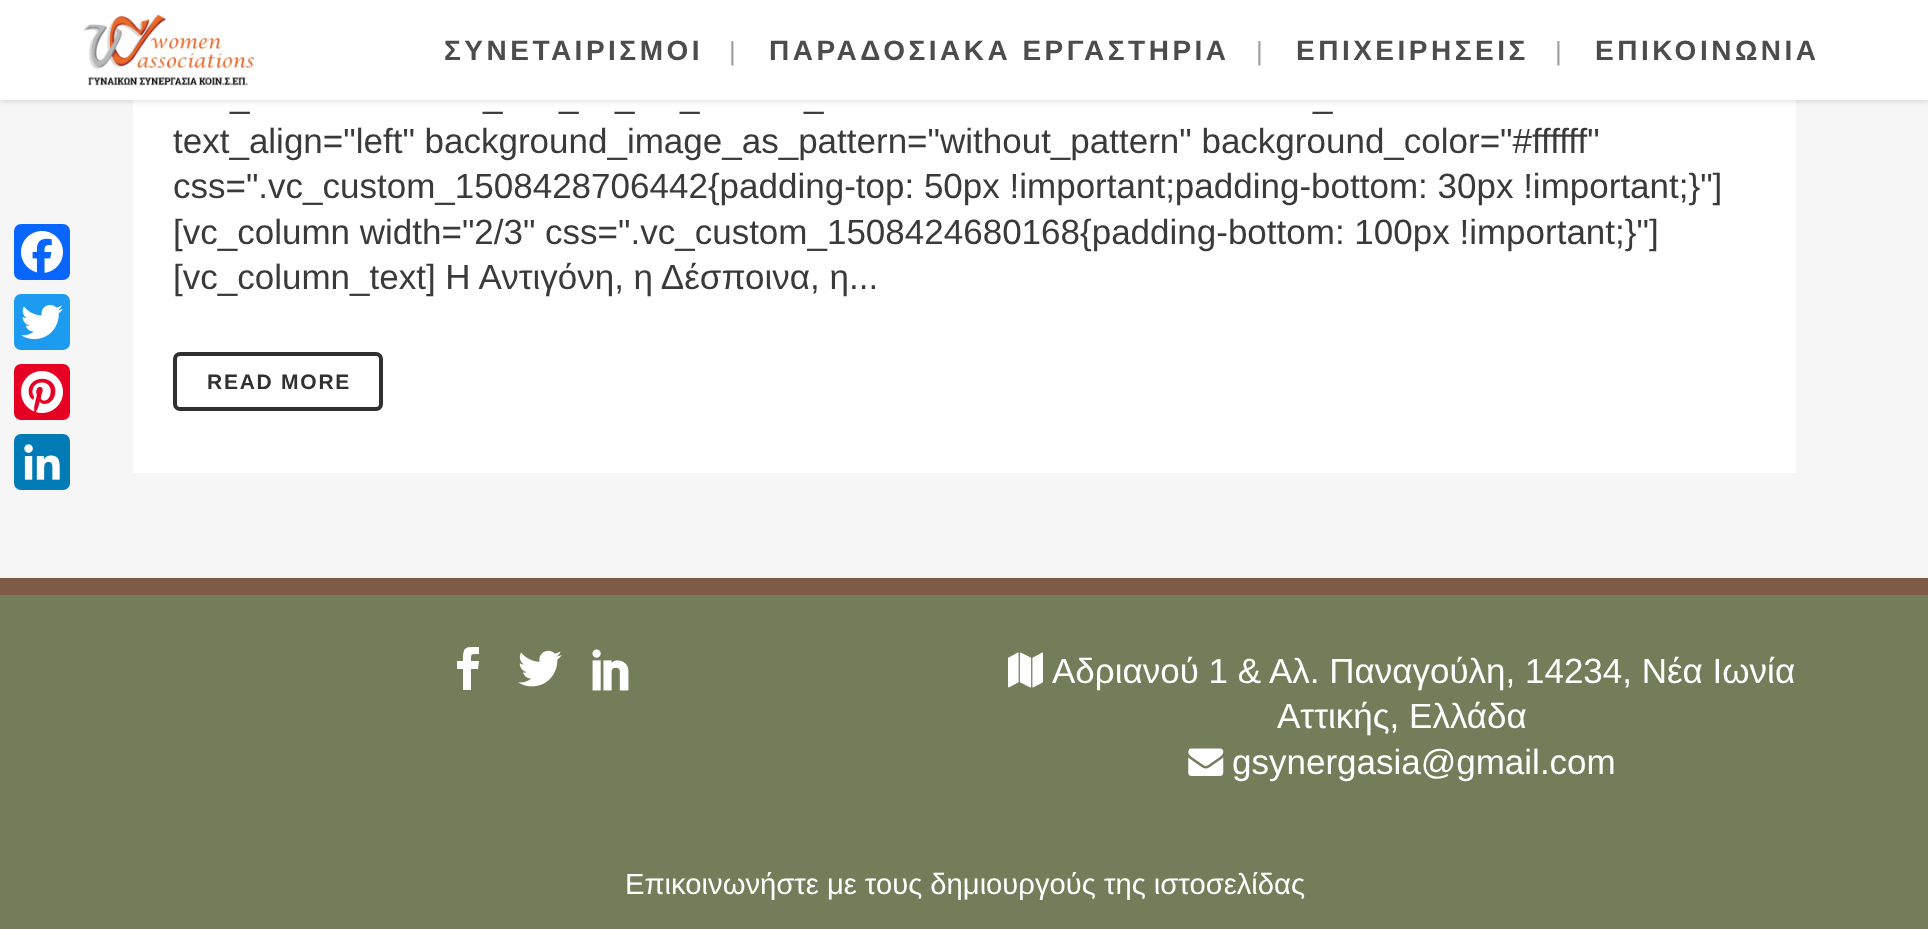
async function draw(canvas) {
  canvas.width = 1928
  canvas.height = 929
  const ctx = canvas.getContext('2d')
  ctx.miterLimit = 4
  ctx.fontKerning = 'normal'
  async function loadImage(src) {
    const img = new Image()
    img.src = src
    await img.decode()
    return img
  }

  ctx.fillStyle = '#f6f6f6'
  ctx.fillRect(0, 0, 1928, 929)
  ctx.fillStyle = '#0866ff'
  ctx.beginPath()
  ctx.roundRect(14, 224, 56, 56, 7)
  ctx.fill()
  ctx.drawImage(await loadImage('image0.png'), 21, 231, 42, 42)
  ctx.fillStyle = '#1d9bf0'
  ctx.beginPath()
  ctx.roundRect(14, 294, 56, 56, 7)
  ctx.fill()
  ctx.drawImage(await loadImage('image1.png'), 21, 304, 42, 36)
  ctx.fillStyle = '#e60023'
  ctx.beginPath()
  ctx.roundRect(14, 364, 56, 56, 7)
  ctx.fill()
  ctx.drawImage(await loadImage('image2.png'), 21, 371, 42, 42)
  ctx.fillStyle = '#007bb5'
  ctx.beginPath()
  ctx.roundRect(14, 434, 56, 56, 7)
  ctx.fill()
  ctx.drawImage(await loadImage('image3.png'), 24, 444, 36, 36)
  ctx.fillStyle = '#fff'
  ctx.fillRect(133, 0, 1663, 473)
  ctx.save()
  ctx.beginPath()
  ctx.moveTo(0, 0)
  ctx.lineTo(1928, 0)
  ctx.lineTo(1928, 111)
  ctx.lineTo(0, 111)
  ctx.closePath()
  ctx.moveTo(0, 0)
  ctx.lineTo(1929, 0)
  ctx.lineTo(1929, 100)
  ctx.lineTo(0, 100)
  ctx.closePath()
  ctx.clip('evenodd')
  ctx.fillStyle = '#0000001c'
  ctx.filter = 'blur(2.5px)'
  ctx.beginPath()
  ctx.rect(0, 2, 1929, 100)
  ctx.fill()
  ctx.filter = 'none'
  ctx.restore()
  ctx.fillStyle = '#ffffffeb'
  ctx.fillRect(0, 0, 1928, 100)
  ctx.drawImage(await loadImage('image4.png'), 83, 14, 171, 72)
  ctx.letterSpacing = '3.5px'
  ctx.font = 'bold 28px Liberation Sans'
  ctx.fillStyle = '#4c4c4c'
  ctx.fillText('ΣΥΝΕΤΑΙΡΙΣΜΟΙ', 444, 60)
  ctx.letterSpacing = '0px'
  ctx.font = '26px Liberation Sans'
  ctx.fillStyle = '#9e9e9e'
  ctx.fillText('|', 729, 60)
  ctx.letterSpacing = '3.5px'
  ctx.font = 'bold 28px Liberation Sans'
  ctx.fillStyle = '#4c4c4c'
  ctx.fillText('ΠΑΡΑΔΟΣΙΑΚΑ ΕΡΓΑΣΤΗΡΙΑ', 769, 60)
  ctx.letterSpacing = '0px'
  ctx.font = '26px Liberation Sans'
  ctx.fillStyle = '#9e9e9e'
  ctx.fillText('|', 1256, 60)
  ctx.letterSpacing = '3.5px'
  ctx.font = 'bold 28px Liberation Sans'
  ctx.fillStyle = '#4c4c4c'
  ctx.fillText('ΕΠΙΧΕΙΡΗΣΕΙΣ', 1296, 60)
  ctx.letterSpacing = '0px'
  ctx.font = '26px Liberation Sans'
  ctx.fillStyle = '#9e9e9e'
  ctx.fillText('|', 1555, 60)
  ctx.letterSpacing = '3.5px'
  ctx.font = 'bold 28px Liberation Sans'
  ctx.fillStyle = '#4c4c4c'
  ctx.fillText('ΕΠΙΚΟΙΝΩΝΙΑ', 1595, 60)
  ctx.letterSpacing = '0px'
  ctx.font = '35px Liberation Sans'
  ctx.fillStyle = '#3a3a3a'
  ctx.fillText('_', 230, 107)
  ctx.fillText('_', 483, 107)
  ctx.fillText('_', 559, 107)
  ctx.fillText('_', 615, 107)
  ctx.fillText('_', 680, 107)
  ctx.fillText('_', 804, 107)
  ctx.fillText('_', 1313, 107)
  ctx.fillText('text_align="left" background_image_as_pattern="without_pattern" background_color="#ffffff"', 173, 153)
  ctx.fillText('css=".vc_custom_1508428706442{padding-top: 50px !important;padding-bottom: 30px !important;}"]', 173, 198)
  ctx.fillText('[vc_column width="2/3" css=".vc_custom_1508424680168{padding-bottom: 100px !important;}"]', 173, 244)
  ctx.fillText('[vc_column_text] Η Αντιγόνη, η Δέσποινα, η...', 173, 289)
  ctx.beginPath()
  ctx.roundRect(175, 354, 206, 55, 5)
  ctx.strokeStyle = '#303030'
  ctx.lineWidth = 4
  ctx.stroke()
  ctx.letterSpacing = '1.75px'
  ctx.font = 'bold 21px Liberation Sans'
  ctx.fillStyle = '#303030'
  ctx.fillText('READ MORE', 207, 389)
  ctx.fillStyle = '#7e5b45'
  ctx.fillRect(0, 578, 1928, 17)
  ctx.fillStyle = '#737d5a'
  ctx.fillRect(0, 595, 1928, 334)
  ctx.fillStyle = '#fff'
  ctx.beginPath()
  ctx.moveTo(463, 690)
  ctx.lineTo(463, 669)
  ctx.lineTo(457, 669)
  ctx.lineTo(457, 661)
  ctx.lineTo(463, 661)
  ctx.bezierCurveTo(463, 646, 465, 647, 479, 647)
  ctx.lineTo(479, 654)
  ctx.bezierCurveTo(471, 654, 471, 653, 471, 661)
  ctx.lineTo(479, 661)
  ctx.lineTo(478, 669)
  ctx.lineTo(471, 669)
  ctx.lineTo(471, 690)
  ctx.closePath()
  ctx.fill()
  ctx.drawImage(await loadImage('image5.png'), 518, 650, 44, 37)
  ctx.drawImage(await loadImage('image6.png'), 592, 649, 37, 42)
  ctx.drawImage(await loadImage('image7.png'), 1008, 652, 35, 36)
  ctx.letterSpacing = '0px'
  ctx.font = '35px Liberation Sans'
  ctx.fillText('Αδριανού 1 & Αλ. Παναγούλη, 14234, Νέα Ιωνία', 1052, 683)
  ctx.fillText('Αττικής, Ελλάδα', 1277, 728)
  ctx.drawImage(await loadImage('image8.png'), 1188, 748, 36, 28)
  ctx.fillText('gsynergasia@gmail.com', 1232, 774)
  ctx.font = '29.2px Liberation Sans'
  ctx.fillText('Επικοινωνήστε με τους δημιουργούς της ιστοσελίδας', 625, 894)
}

draw(document.querySelector('canvas'))
